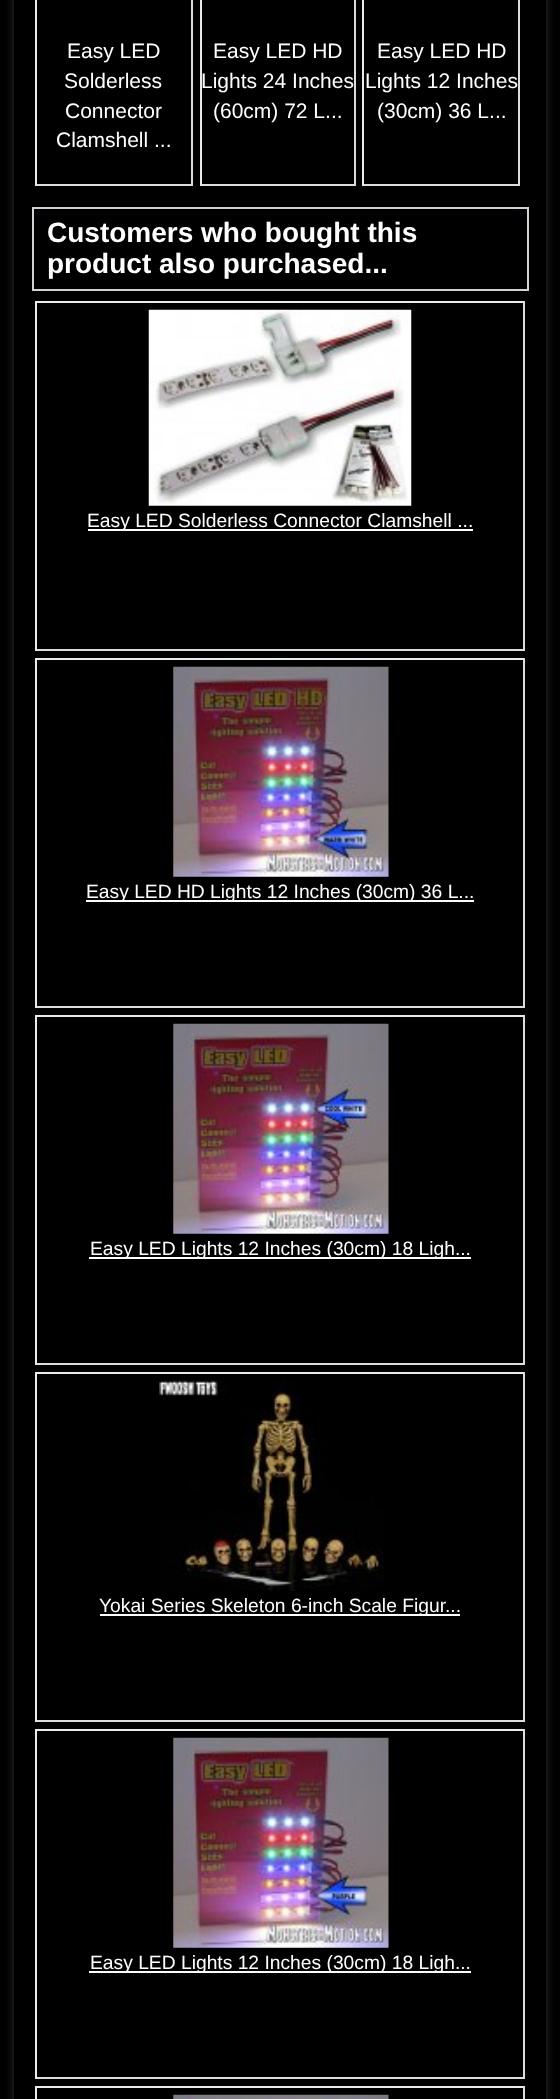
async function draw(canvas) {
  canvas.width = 560
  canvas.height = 2099
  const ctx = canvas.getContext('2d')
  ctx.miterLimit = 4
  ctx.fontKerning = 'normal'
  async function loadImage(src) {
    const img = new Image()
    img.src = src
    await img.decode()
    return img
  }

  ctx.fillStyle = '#000'
  ctx.fillRect(0, 0, 560, 2099)
  ctx.save()
  ctx.beginPath()
  ctx.moveTo(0, 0)
  ctx.lineTo(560, 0)
  ctx.lineTo(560, 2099)
  ctx.lineTo(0, 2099)
  ctx.closePath()
  ctx.moveTo(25, -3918)
  ctx.lineTo(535, -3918)
  ctx.bezierCurveTo(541, -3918, 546, -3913, 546, -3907)
  ctx.lineTo(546, 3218)
  ctx.lineTo(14, 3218)
  ctx.lineTo(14, -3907)
  ctx.bezierCurveTo(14, -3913, 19, -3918, 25, -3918)
  ctx.closePath()
  ctx.clip('evenodd')
  ctx.fillStyle = '#333'
  ctx.filter = 'blur(4.5px)'
  ctx.beginPath()
  ctx.roundRect(14, -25, 532, 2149, 11)
  ctx.fill()
  ctx.filter = 'none'
  ctx.restore()
  ctx.fillStyle = '#ddd'
  ctx.fillRect(191, 0, 2, 186)
  ctx.fillRect(35, 184, 158, 2)
  ctx.fillStyle = '#ebebeb'
  ctx.fillRect(35, 0, 2, 186)
  ctx.font = '21px Liberation Sans'
  ctx.fillStyle = '#fff'
  ctx.fillText('Easy LED', 67, 58)
  ctx.fillText('Solderless', 64, 88)
  ctx.fillText('Connector', 65, 118)
  ctx.fillText('Clamshell ...', 56, 147)
  ctx.fillStyle = '#ddd'
  ctx.fillRect(354, 0, 2, 186)
  ctx.fillRect(200, 184, 155, 2)
  ctx.fillStyle = '#ebebeb'
  ctx.fillRect(200, 0, 2, 186)
  ctx.fillStyle = '#fff'
  ctx.fillText('Easy LED HD', 213, 58)
  ctx.fillText('Lights 24 Inches', 201, 88)
  ctx.fillText('(60cm) 72 L...', 213, 118)
  ctx.fillStyle = '#ddd'
  ctx.fillRect(518, 0, 2, 186)
  ctx.fillRect(362, 184, 158, 2)
  ctx.fillStyle = '#ebebeb'
  ctx.fillRect(362, 0, 2, 186)
  ctx.fillStyle = '#fff'
  ctx.fillText('Easy LED HD', 377, 58)
  ctx.fillText('Lights 12 Inches', 365, 88)
  ctx.fillText('(30cm) 36 L...', 377, 118)
  ctx.strokeStyle = '#cdd3d7'
  ctx.lineWidth = 2
  ctx.strokeRect(33, 208, 495, 82)
  ctx.font = 'bold 28px Liberation Sans'
  ctx.fillText('Customers who bought this', 47, 242)
  ctx.fillText('product also purchased...', 47, 273)
  ctx.fillStyle = '#ebebeb'
  ctx.fillRect(35, 301, 490, 2)
  ctx.fillStyle = '#ddd'
  ctx.fillRect(523, 301, 2, 350)
  ctx.fillRect(35, 649, 490, 2)
  ctx.fillStyle = '#ebebeb'
  ctx.fillRect(35, 301, 2, 350)
  ctx.drawImage(await loadImage('image0.png'), 148, 309, 264, 197)
  ctx.fillStyle = '#fff'
  ctx.fillRect(88, 529, 385, 2)
  ctx.font = '19.25px Liberation Sans'
  ctx.fillText('Easy LED Solderless Connector Clamshell ...', 87, 527)
  ctx.fillStyle = '#ebebeb'
  ctx.fillRect(35, 658, 490, 2)
  ctx.fillStyle = '#ddd'
  ctx.fillRect(523, 658, 2, 350)
  ctx.fillRect(35, 1006, 490, 2)
  ctx.fillStyle = '#ebebeb'
  ctx.fillRect(35, 658, 2, 350)
  ctx.drawImage(await loadImage('image1.png'), 173, 666, 216, 211)
  ctx.fillStyle = '#fff'
  ctx.fillRect(86, 900, 388, 2)
  ctx.fillText('Easy LED HD Lights 12 Inches (30cm) 36 L...', 86, 898)
  ctx.fillStyle = '#ebebeb'
  ctx.fillRect(35, 1015, 490, 2)
  ctx.fillStyle = '#ddd'
  ctx.fillRect(523, 1015, 2, 350)
  ctx.fillRect(35, 1363, 490, 2)
  ctx.fillStyle = '#ebebeb'
  ctx.fillRect(35, 1015, 2, 350)
  ctx.drawImage(await loadImage('image2.png'), 173, 1023, 216, 211)
  ctx.fillStyle = '#fff'
  ctx.fillRect(89, 1257, 382, 2)
  ctx.fillText('Easy LED Lights 12 Inches (30cm) 18 Ligh...', 90, 1255)
  ctx.fillStyle = '#ebebeb'
  ctx.fillRect(35, 1372, 490, 2)
  ctx.fillStyle = '#ddd'
  ctx.fillRect(523, 1372, 2, 350)
  ctx.fillRect(35, 1720, 490, 2)
  ctx.fillStyle = '#ebebeb'
  ctx.fillRect(35, 1372, 2, 350)
  ctx.drawImage(await loadImage('image3.png'), 159, 1380, 226, 211)
  ctx.fillStyle = '#fff'
  ctx.fillRect(100, 1614, 360, 2)
  ctx.fillText('Yokai Series Skeleton 6-inch Scale Figur...', 99, 1612)
  ctx.fillStyle = '#ebebeb'
  ctx.fillRect(35, 1729, 490, 2)
  ctx.fillStyle = '#ddd'
  ctx.fillRect(523, 1729, 2, 350)
  ctx.fillRect(35, 2077, 490, 2)
  ctx.fillStyle = '#ebebeb'
  ctx.fillRect(35, 1729, 2, 350)
  ctx.drawImage(await loadImage('image4.png'), 173, 1737, 216, 211)
  ctx.fillStyle = '#fff'
  ctx.fillRect(89, 1971, 382, 2)
  ctx.fillText('Easy LED Lights 12 Inches (30cm) 18 Ligh...', 90, 1969)
  ctx.fillStyle = '#ebebeb'
  ctx.fillRect(35, 2086, 490, 2)
  ctx.fillStyle = '#ddd'
  ctx.fillRect(523, 2086, 2, 13)
  ctx.fillStyle = '#ebebeb'
  ctx.fillRect(35, 2086, 2, 13)
  ctx.drawImage(await loadImage('image5.png'), 173, 2094, 216, 5)
}

draw(document.querySelector('canvas'))
